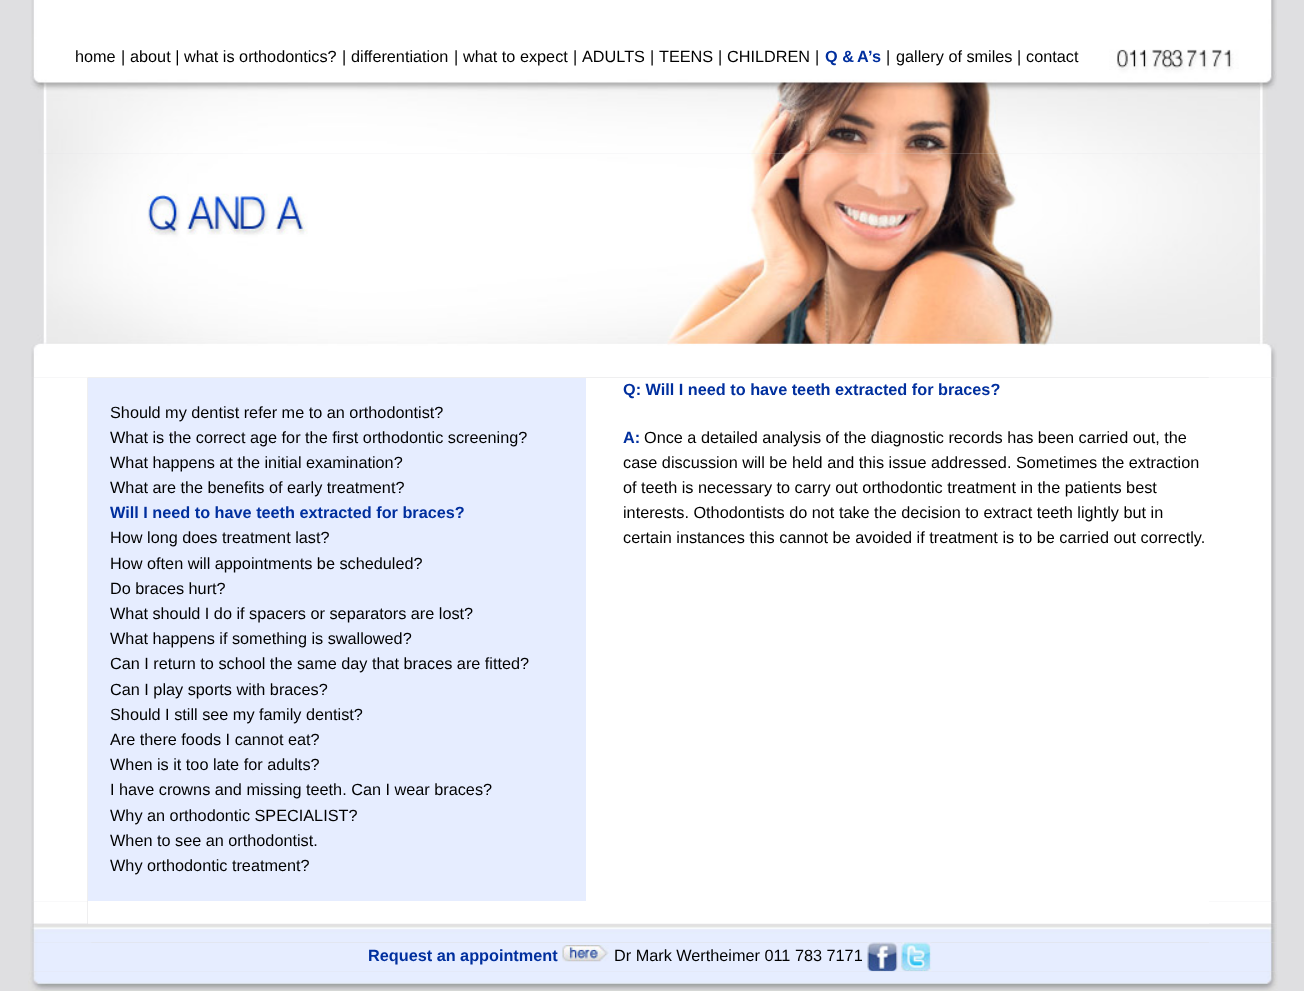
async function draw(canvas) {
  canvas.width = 1304
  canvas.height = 991
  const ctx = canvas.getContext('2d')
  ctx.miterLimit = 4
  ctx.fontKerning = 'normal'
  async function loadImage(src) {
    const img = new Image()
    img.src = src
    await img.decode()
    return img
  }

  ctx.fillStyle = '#dfdfe1'
  ctx.fillRect(0, 0, 1304, 991)
  ctx.drawImage(await loadImage('image0.png'), 31, 0, 44, 70)
  ctx.fillStyle = '#fff'
  ctx.fillRect(75, 0, 1034, 70)
  ctx.font = '16.25px Liberation Sans'
  ctx.fillStyle = '#000'
  ctx.fillText('home', 75, 62)
  ctx.fillText('|', 121, 62)
  ctx.fillText('about |', 130, 62)
  ctx.fillText('what is orthodontics?', 184, 62)
  ctx.fillText('|', 342, 62)
  ctx.fillText('differentiation', 351, 62)
  ctx.fillText('|', 454, 62)
  ctx.fillText('what to expect', 463, 62)
  ctx.fillText('|', 573, 62)
  ctx.fillText('ADULTS', 582, 62)
  ctx.fillText('|', 650, 62)
  ctx.fillText('TEENS', 659, 62)
  ctx.fillText('|', 718, 62)
  ctx.fillText('CHILDREN', 727, 62)
  ctx.fillText('|', 815, 62)
  ctx.font = 'bold 16.25px Liberation Sans'
  ctx.fillStyle = '#002f9e'
  ctx.fillText('Q &', 825, 62)
  ctx.fillText('A', 857, 62)
  ctx.fillText('’', 868, 62)
  ctx.fillText('s', 872, 62)
  ctx.font = '16.25px Liberation Sans'
  ctx.fillStyle = '#000'
  ctx.fillText('|', 886, 62)
  ctx.fillText('gallery of smiles', 896, 62)
  ctx.fillText('|', 1017, 62)
  ctx.fillText('contact', 1026, 62)
  ctx.drawImage(await loadImage('image1.png'), 1109, 0, 168, 70)
  ctx.drawImage(await loadImage('image2.png'), 30, 70, 1247, 84)
  ctx.drawImage(await loadImage('image3.png'), 43, 153, 1223, 82)
  ctx.drawImage(await loadImage('image4.png'), 43, 235, 1223, 70)
  ctx.drawImage(await loadImage('image6.png'), 31, 377, 57, 525)
  ctx.fillStyle = '#fff'
  ctx.fillRect(586, 378, 623, 523)
  ctx.drawImage(await loadImage('image7.png'), 1208, 377, 68, 525)
  ctx.drawImage(await loadImage('image5.png'), 31, 305, 1246, 73)
  ctx.fillStyle = '#e6edff'
  ctx.fillRect(88, 378, 498, 22)
  ctx.fillRect(88, 400, 498, 25)
  ctx.fillStyle = '#000'
  ctx.fillText('Should my dentist refer me to an orthodontist?', 110, 418)
  ctx.fillStyle = '#e6edff'
  ctx.fillRect(88, 425, 498, 25)
  ctx.fillStyle = '#000'
  ctx.fillText('What is the correct age for the first orthodontic screening?', 110, 443)
  ctx.fillStyle = '#e6edff'
  ctx.fillRect(88, 450, 498, 25)
  ctx.fillStyle = '#000'
  ctx.fillText('What happens at the initial examination?', 110, 468)
  ctx.fillStyle = '#e6edff'
  ctx.fillRect(88, 475, 498, 26)
  ctx.fillStyle = '#000'
  ctx.fillText('What are the benefits of early treatment?', 110, 493)
  ctx.fillStyle = '#e6edff'
  ctx.fillRect(88, 501, 498, 25)
  ctx.font = 'bold 16.25px Liberation Sans'
  ctx.fillStyle = '#002f9e'
  ctx.fillText('Will I need to have teeth extracted for braces?', 110, 518)
  ctx.fillStyle = '#e6edff'
  ctx.fillRect(88, 526, 498, 25)
  ctx.font = '16.25px Liberation Sans'
  ctx.fillStyle = '#000'
  ctx.fillText('How long does treatment last?', 110, 543)
  ctx.fillStyle = '#e6edff'
  ctx.fillRect(88, 551, 498, 25)
  ctx.fillStyle = '#000'
  ctx.fillText('How often will appointments be scheduled?', 110, 569)
  ctx.fillStyle = '#e6edff'
  ctx.fillRect(88, 576, 498, 25)
  ctx.fillStyle = '#000'
  ctx.fillText('Do braces hurt?', 110, 594)
  ctx.fillStyle = '#e6edff'
  ctx.fillRect(88, 601, 498, 25)
  ctx.fillStyle = '#000'
  ctx.fillText('What should I do if spacers or separators are lost?', 110, 619)
  ctx.fillStyle = '#e6edff'
  ctx.fillRect(88, 626, 498, 27)
  ctx.fillStyle = '#000'
  ctx.fillText('What happens if something is swallowed?', 110, 644)
  ctx.fillStyle = '#e6edff'
  ctx.fillRect(88, 653, 498, 25)
  ctx.fillStyle = '#000'
  ctx.fillText('Can I return to school the same day that braces are fitted?', 110, 669)
  ctx.fillStyle = '#e6edff'
  ctx.fillRect(88, 678, 498, 25)
  ctx.fillStyle = '#000'
  ctx.fillText('Can I play sports with braces?', 110, 695)
  ctx.fillStyle = '#e6edff'
  ctx.fillRect(88, 703, 498, 25)
  ctx.fillStyle = '#000'
  ctx.fillText('Should I still see my family dentist?', 110, 720)
  ctx.fillStyle = '#e6edff'
  ctx.fillRect(88, 728, 498, 25)
  ctx.fillStyle = '#000'
  ctx.fillText('Are there foods I cannot eat?', 110, 745)
  ctx.fillStyle = '#e6edff'
  ctx.fillRect(88, 753, 498, 25)
  ctx.fillStyle = '#000'
  ctx.fillText('When is it too late for adults?', 110, 770)
  ctx.fillStyle = '#e6edff'
  ctx.fillRect(88, 778, 498, 26)
  ctx.fillStyle = '#000'
  ctx.fillText('I have crowns and missing teeth. Can I wear braces?', 110, 795)
  ctx.fillStyle = '#e6edff'
  ctx.fillRect(88, 804, 498, 25)
  ctx.fillStyle = '#000'
  ctx.fillText('Why an orthodontic SPECIALIST?', 110, 821)
  ctx.fillStyle = '#e6edff'
  ctx.fillRect(88, 829, 498, 25)
  ctx.fillStyle = '#000'
  ctx.fillText('When to see an orthodontist.', 110, 846)
  ctx.fillStyle = '#e6edff'
  ctx.fillRect(88, 854, 498, 25)
  ctx.fillStyle = '#000'
  ctx.fillText('Why orthodontic treatment?', 110, 871)
  ctx.fillStyle = '#e6edff'
  ctx.fillRect(88, 879, 498, 22)
  ctx.font = 'bold 16.25px Liberation Sans'
  ctx.fillStyle = '#002f9e'
  ctx.fillText('Q: Will I need to have teeth extracted for braces?', 623, 395)
  ctx.fillText('A:', 623, 443)
  ctx.font = '16.25px Liberation Sans'
  ctx.fillStyle = '#000'
  ctx.fillText('Once a detailed analysis of the diagnostic records has been carried out, the', 644, 443)
  ctx.fillText('case discussion will be held and this issue addressed. Sometimes the extraction', 623, 468)
  ctx.fillText('of teeth is necessary to carry out orthodontic treatment in the patients best', 623, 493)
  ctx.fillText('interests. Othodontists do not take the decision to extract teeth lightly but in', 623, 518)
  ctx.fillText('certain instances this cannot be avoided if treatment is to be carried out correctly.', 623, 543)
  ctx.drawImage(await loadImage('image8.png'), 31, 901, 57, 23)
  ctx.fillStyle = '#fff'
  ctx.fillRect(88, 901, 1121, 23)
  ctx.drawImage(await loadImage('image9.png'), 1209, 901, 68, 23)
  ctx.drawImage(await loadImage('image11.png'), 30, 942, 62, 30)
  ctx.drawImage(await loadImage('image15.png'), 1209, 942, 68, 30)
  ctx.drawImage(await loadImage('image10.png'), 30, 923, 1247, 20)
  ctx.fillStyle = '#e6edff'
  ctx.fillRect(91, 943, 1118, 28)
  ctx.font = 'bold 16.25px Liberation Sans'
  ctx.fillStyle = '#002f9e'
  ctx.fillText('Request an appointment', 368, 961)
  ctx.drawImage(await loadImage('image12.png'), 562, 945, 47, 17)
  ctx.font = '16.25px Liberation Sans'
  ctx.fillStyle = '#000'
  ctx.fillText('Dr Mark Wertheimer 011 783 7171', 614, 961)
  ctx.drawImage(await loadImage('image13.png'), 867, 942, 31, 30)
  ctx.drawImage(await loadImage('image14.png'), 901, 942, 31, 30)
  ctx.drawImage(await loadImage('image16.png'), 28, 971, 1250, 20)
}

draw(document.querySelector('canvas'))
